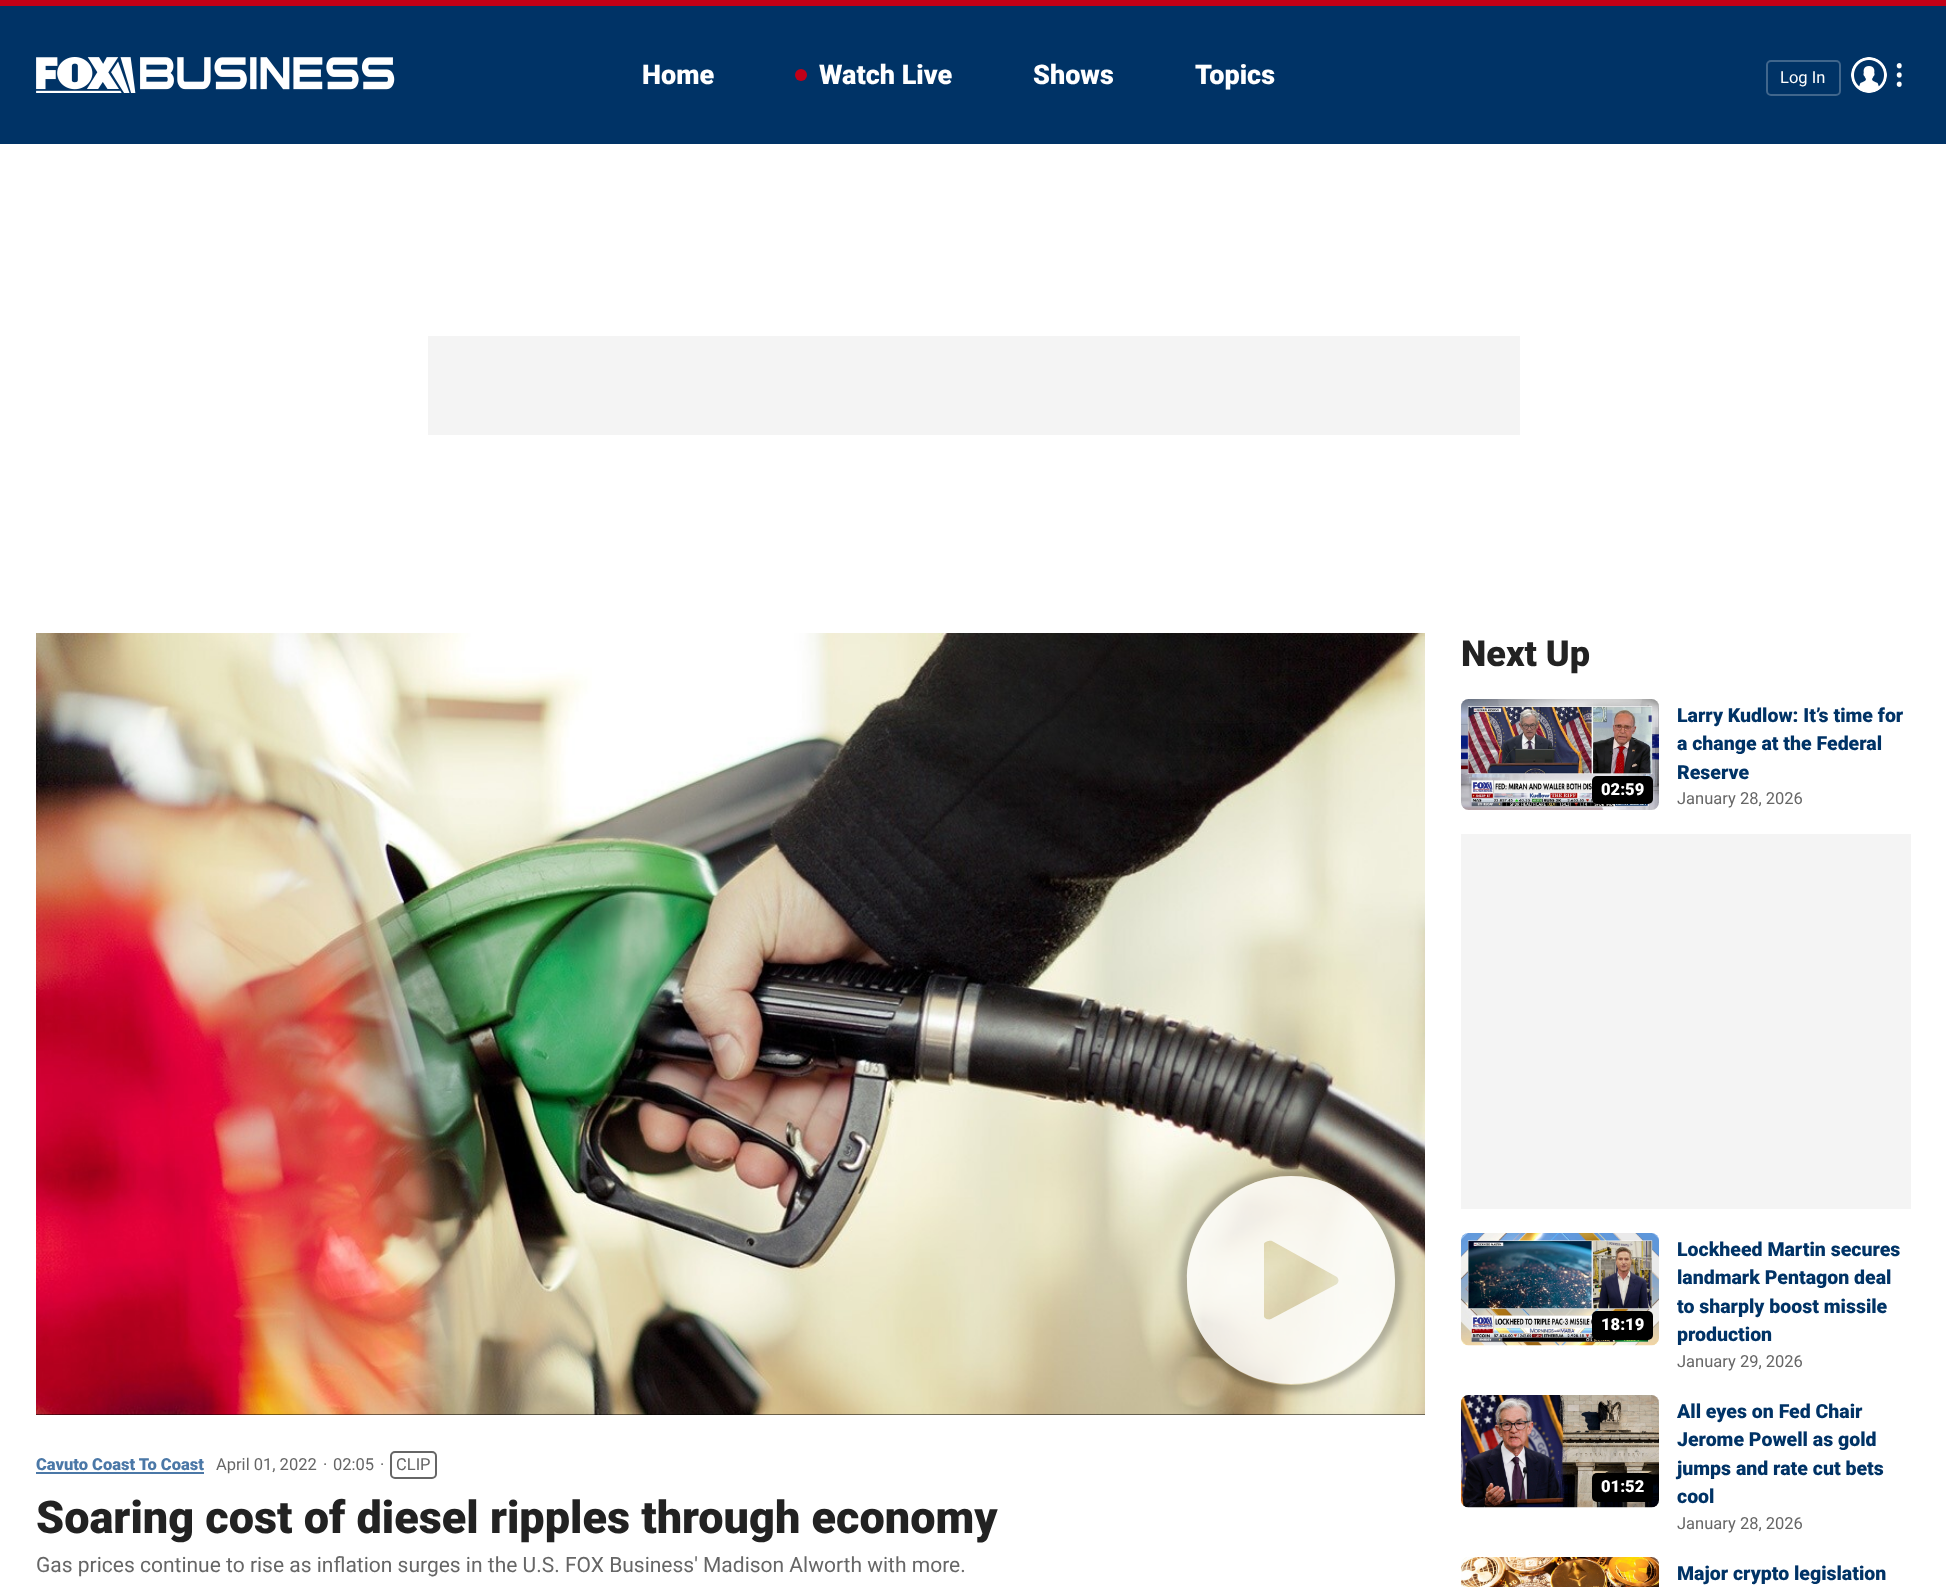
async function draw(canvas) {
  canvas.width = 1946
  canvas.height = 1587
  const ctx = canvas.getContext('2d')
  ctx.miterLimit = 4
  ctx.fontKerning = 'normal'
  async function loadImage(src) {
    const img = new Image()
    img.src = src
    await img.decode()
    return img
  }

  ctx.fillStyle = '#fff'
  ctx.fillRect(0, 0, 1946, 1587)
  ctx.fillStyle = '#036'
  ctx.fillRect(0, 6, 1946, 138)
  ctx.fillStyle = '#c20017'
  ctx.fillRect(0, 0, 1946, 6)
  ctx.drawImage(await loadImage('image0.png'), 36, 57, 359, 36)
  ctx.font = '900 27px Roboto'
  ctx.fillStyle = '#fff'
  ctx.fillText('Home', 642, 84)
  ctx.fillStyle = '#c20017'
  ctx.beginPath()
  ctx.arc(801, 75, 6, 0, 2 * Math.PI)
  ctx.fill()
  ctx.fillStyle = '#fff'
  ctx.fillText('Watch Live', 819, 84)
  ctx.fillText('Shows', 1033, 84)
  ctx.fillText('Topics', 1195, 84)
  ctx.beginPath()
  ctx.roundRect(1767, 61, 73, 34, 4)
  ctx.strokeStyle = '#40668c'
  ctx.lineWidth = 2
  ctx.stroke()
  ctx.font = '16.5px Roboto'
  ctx.fillText('Log In', 1780, 83)
  ctx.drawImage(await loadImage('image1.png'), 1851, 57, 36, 36)
  ctx.drawImage(await loadImage('image2.png'), 1896, 63, 6, 24)
  ctx.fillStyle = '#f4f4f4'
  ctx.fillRect(428, 336, 1092, 99)
  ctx.fillStyle = '#000'
  ctx.fillRect(36, 1414, 1389, 1)
  ctx.drawImage(await loadImage('image3.png'), 36, 633, 1389, 782)
  ctx.save()
  ctx.beginPath()
  ctx.moveTo(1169, 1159)
  ctx.lineTo(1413, 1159)
  ctx.lineTo(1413, 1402)
  ctx.lineTo(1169, 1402)
  ctx.closePath()
  ctx.moveTo(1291, 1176)
  ctx.bezierCurveTo(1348.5, 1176, 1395, 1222.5, 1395, 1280)
  ctx.lineTo(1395, 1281)
  ctx.bezierCurveTo(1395, 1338.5, 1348.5, 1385, 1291, 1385)
  ctx.bezierCurveTo(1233.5, 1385, 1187, 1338.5, 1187, 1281)
  ctx.lineTo(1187, 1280)
  ctx.bezierCurveTo(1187, 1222.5, 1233.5, 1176, 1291, 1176)
  ctx.closePath()
  ctx.clip('evenodd')
  ctx.fillStyle = '#0000003d'
  ctx.filter = 'blur(3px)'
  ctx.beginPath()
  ctx.roundRect(1179, 1169, 224, 223, 111.5)
  ctx.fill()
  ctx.filter = 'none'
  ctx.restore()
  ctx.fillStyle = '#ffffffcc'
  ctx.beginPath()
  ctx.moveTo(1291, 1176)
  ctx.bezierCurveTo(1234, 1176, 1187, 1223, 1187, 1280)
  ctx.lineTo(1187, 1281)
  ctx.bezierCurveTo(1187, 1308, 1197, 1333, 1215, 1352)
  ctx.bezierCurveTo(1234, 1372, 1261, 1384, 1291, 1384)
  ctx.bezierCurveTo(1348, 1384, 1395, 1338, 1395, 1280)
  ctx.bezierCurveTo(1395, 1223, 1348, 1176, 1291, 1176)
  ctx.closePath()
  ctx.moveTo(1337, 1284)
  ctx.bezierCurveTo(1339, 1282, 1339, 1279, 1337, 1277)
  ctx.lineTo(1272, 1241)
  ctx.bezierCurveTo(1270, 1240, 1264, 1242, 1264, 1244)
  ctx.lineTo(1264, 1316)
  ctx.bezierCurveTo(1264, 1319, 1269, 1320, 1271, 1319)
  ctx.closePath()
  ctx.fill('evenodd')
  ctx.font = '900 16.5px Roboto'
  ctx.fillStyle = '#4b78a7'
  ctx.fillText('Cavuto Coast To Coast', 36, 1470)
  ctx.fillRect(36, 1472, 168, 2)
  ctx.font = '16.5px Roboto'
  ctx.fillStyle = '#666'
  ctx.fillText('April 01, 2022', 216, 1470)
  ctx.fillText('·', 323, 1470)
  ctx.fillText('02:05', 333, 1470)
  ctx.fillText('·', 380, 1470)
  ctx.beginPath()
  ctx.roundRect(391, 1452, 45, 26, 4)
  ctx.strokeStyle = '#666'
  ctx.stroke()
  ctx.fillText('CLIP', 396, 1470)
  ctx.font = '900 45px Roboto'
  ctx.fillStyle = '#222'
  ctx.fillText('Soaring cost of diesel ripples through economy', 36, 1533)
  ctx.font = '21px Roboto'
  ctx.fillStyle = '#666'
  ctx.fillText('Gas prices continue to rise as inflation surges in the U.S. FOX Business\' Madison Alworth with more.', 36, 1572)
  ctx.font = '900 36px Roboto'
  ctx.fillStyle = '#222'
  ctx.fillText('Next Up', 1461, 666)
  ctx.drawImage(await loadImage('image4.png'), 1461, 699, 198, 111)
  ctx.fillStyle = '#000'
  ctx.beginPath()
  ctx.roundRect(1592, 776, 61, 28, 5)
  ctx.fill()
  ctx.font = '900 16.5px Roboto'
  ctx.fillStyle = '#fff'
  ctx.fillText('02:59', 1601, 795)
  ctx.font = '900 19.5px Roboto'
  ctx.fillStyle = '#036'
  ctx.fillText('Larry Kudlow: It’s time for', 1677, 722)
  ctx.fillText('a change at the Federal', 1677, 750)
  ctx.fillText('Reserve', 1677, 779)
  ctx.font = '16.5px Roboto'
  ctx.fillStyle = '#666'
  ctx.fillText('January 28, 2026', 1677, 804)
  ctx.fillStyle = '#f4f4f4'
  ctx.fillRect(1461, 834, 450, 375)
  ctx.drawImage(await loadImage('image5.png'), 1461, 1233, 198, 113)
  ctx.fillStyle = '#000'
  ctx.beginPath()
  ctx.roundRect(1592, 1311, 61, 29, 5)
  ctx.fill()
  ctx.font = '900 16.5px Roboto'
  ctx.fillStyle = '#fff'
  ctx.fillText('18:19', 1601, 1330)
  ctx.font = '900 19.5px Roboto'
  ctx.fillStyle = '#036'
  ctx.fillText('Lockheed Martin secures', 1677, 1256)
  ctx.fillText('landmark Pentagon deal', 1677, 1284)
  ctx.fillText('to sharply boost missile', 1677, 1313)
  ctx.fillText('production', 1677, 1341)
  ctx.font = '16.5px Roboto'
  ctx.fillStyle = '#666'
  ctx.fillText('January 29, 2026', 1677, 1367)
  ctx.drawImage(await loadImage('image6.png'), 1461, 1395, 198, 113)
  ctx.fillStyle = '#000'
  ctx.beginPath()
  ctx.roundRect(1592, 1473, 61, 29, 5)
  ctx.fill()
  ctx.font = '900 16.5px Roboto'
  ctx.fillStyle = '#fff'
  ctx.fillText('01:52', 1601, 1492)
  ctx.font = '900 19.5px Roboto'
  ctx.fillStyle = '#036'
  ctx.fillText('All eyes on Fed Chair', 1677, 1418)
  ctx.fillText('Jerome Powell as gold', 1677, 1446)
  ctx.fillText('jumps and rate cut bets', 1677, 1475)
  ctx.fillText('cool', 1677, 1503)
  ctx.font = '16.5px Roboto'
  ctx.fillStyle = '#666'
  ctx.fillText('January 28, 2026', 1677, 1529)
  ctx.drawImage(await loadImage('image7.png'), 1461, 1557, 198, 30)
  ctx.font = '900 19.5px Roboto'
  ctx.fillStyle = '#036'
  ctx.fillText('Major crypto legislation', 1677, 1580)
}

draw(document.querySelector('canvas'))
